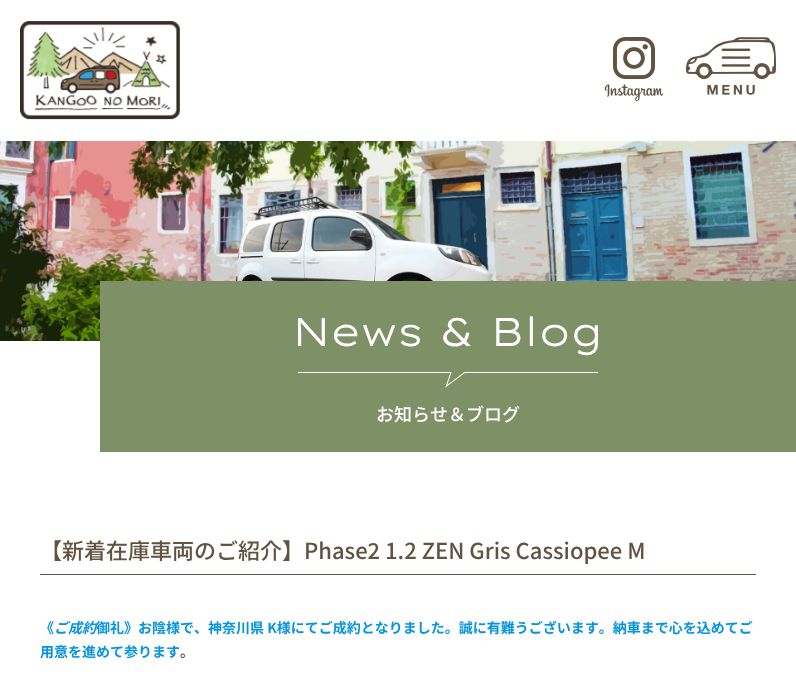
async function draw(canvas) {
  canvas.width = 796
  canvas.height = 686
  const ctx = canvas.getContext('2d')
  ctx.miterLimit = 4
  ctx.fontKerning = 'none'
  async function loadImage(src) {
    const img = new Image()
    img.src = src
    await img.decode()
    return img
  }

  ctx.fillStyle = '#fff'
  ctx.fillRect(0, 0, 796, 686)
  ctx.drawImage(await loadImage('image0.png'), 20, 21, 160, 99)
  ctx.drawImage(await loadImage('image1.png'), 604, 37, 60, 64)
  ctx.drawImage(await loadImage('image2.png'), 686, 37, 90, 58)
  ctx.drawImage(await loadImage('image3.png'), 0, 141, 796, 200)
  ctx.fillStyle = '#7e9066'
  ctx.fillRect(100, 281, 696, 171)
  ctx.font = '300 40px Lexend Giga'
  ctx.fillStyle = '#fff'
  ctx.fillText('News & Blog', 292, 346)
  ctx.drawImage(await loadImage('image4.png'), 298, 372, 300, 16)
  ctx.font = '500 18px Noto Sans JP'
  ctx.fillText('お知らせ＆ブログ', 376, 421)
  ctx.fillStyle = '#625240'
  ctx.fillRect(40, 574, 716, 1)
  ctx.font = '500 22px Noto Sans JP'
  ctx.fillText('【新着在庫車両のご紹介】Phase2 1.2 ZEN Gris Cassiopee M', 40, 559)
  ctx.font = 'bold 14px Noto Sans JP'
  ctx.fillStyle = '#0693e3'
  ctx.fillText('《', 40, 633)
  ctx.font = 'italic bold 14px Noto Sans JP'
  ctx.fillText('ご成約', 54, 633)
  ctx.font = 'bold 14px Noto Sans JP'
  ctx.fillText('御礼》お陰様で、神奈川県 K様にてご成約となりました。誠に有難うございます。納車まで心を込めてご', 96, 633)
  ctx.fillText('用意を進めて参ります', 40, 657)
  ctx.fillStyle = '#625240'
  ctx.fillText('。', 180, 657)
}

draw(document.querySelector('canvas'))
